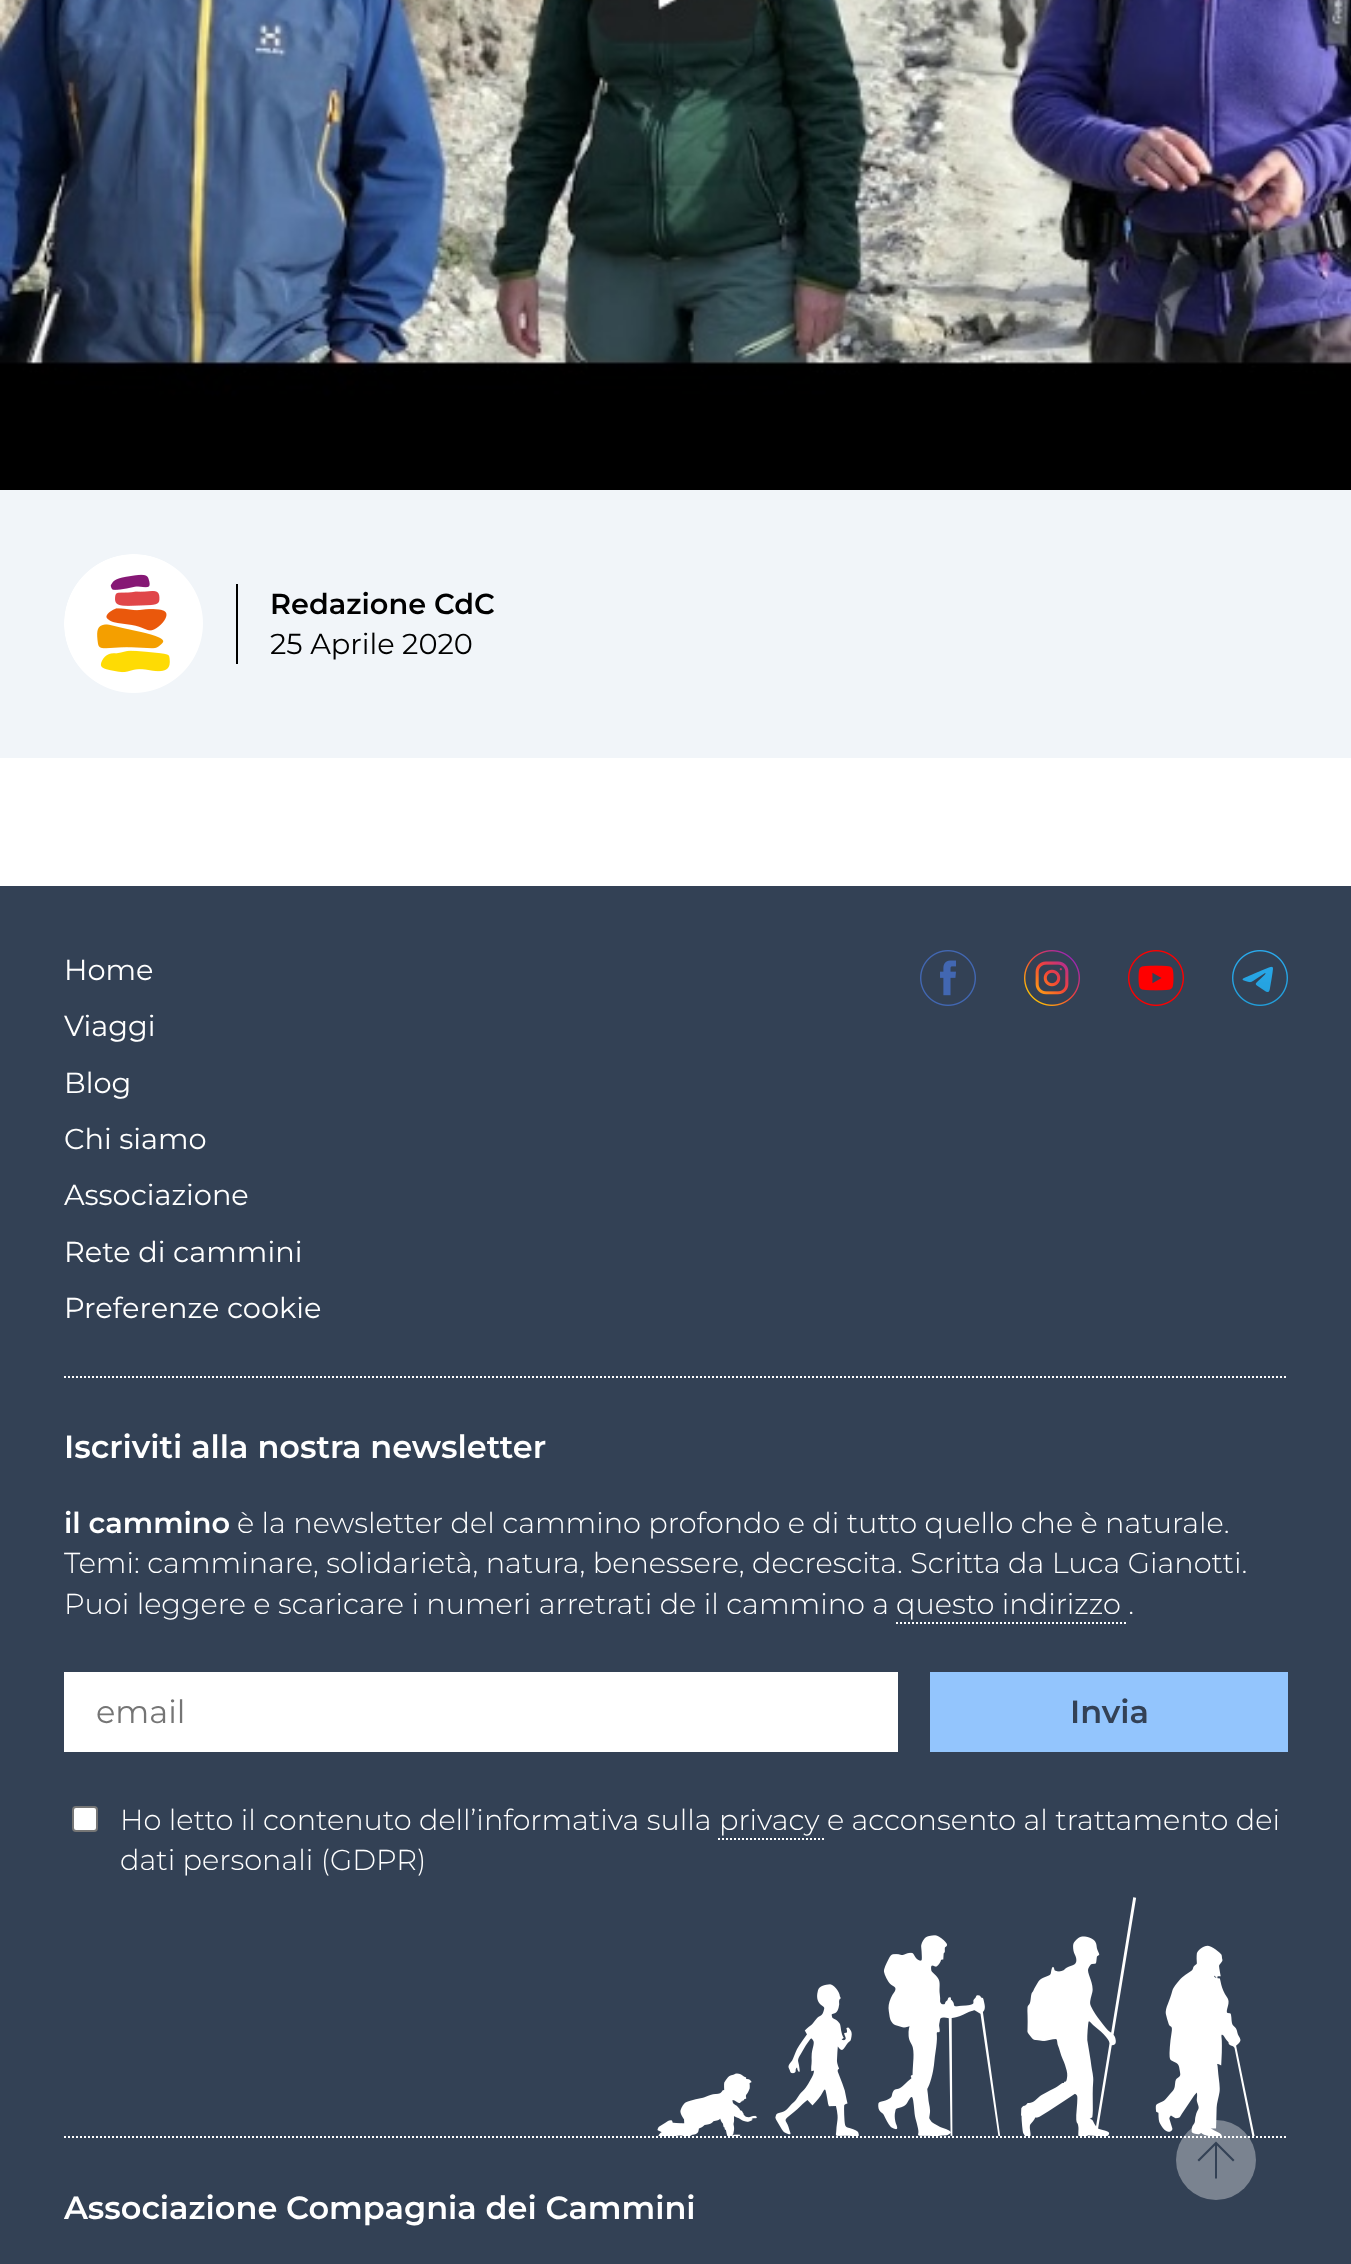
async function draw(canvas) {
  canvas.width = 1351
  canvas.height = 2264
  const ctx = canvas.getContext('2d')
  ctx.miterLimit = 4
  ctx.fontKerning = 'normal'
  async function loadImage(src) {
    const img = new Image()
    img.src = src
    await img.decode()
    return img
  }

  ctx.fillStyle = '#fff'
  ctx.fillRect(0, 0, 1351, 2264)
  ctx.fillStyle = '#f1f5f9'
  ctx.fillRect(0, 490, 1351, 268)
  ctx.drawImage(await loadImage('image0.png'), 0, 0, 1351, 490)
  ctx.drawImage(await loadImage('image1.png'), 64, 554, 139, 139)
  ctx.fillStyle = '#000'
  ctx.fillRect(236, 584, 2, 80)
  ctx.font = '600 28.8px Montserrat'
  ctx.fillText('Redazione CdC', 270, 614)
  ctx.font = '28.8px Montserrat'
  ctx.fillText('25 Aprile 2020', 270, 654)
  ctx.fillStyle = '#334155'
  ctx.fillRect(0, 886, 1351, 1378)
  ctx.fillStyle = '#fff'
  ctx.fillText('Home', 64, 980)
  ctx.fillText('Viaggi', 64, 1036)
  ctx.fillText('Blog', 64, 1093)
  ctx.fillText('Chi siamo', 64, 1149)
  ctx.fillText('Associazione', 64, 1205)
  ctx.fillText('Rete di cammini', 64, 1262)
  ctx.fillText('Preferenze cookie', 64, 1318)
  ctx.drawImage(await loadImage('image2.png'), 920, 950, 56, 56)
  ctx.drawImage(await loadImage('image3.png'), 1024, 950, 56, 56)
  ctx.drawImage(await loadImage('image4.png'), 1128, 950, 56, 56)
  ctx.drawImage(await loadImage('image5.png'), 1232, 950, 56, 56)
  ctx.drawImage(await loadImage('image6.png'), 657, 1897, 598, 239)
  ctx.beginPath()
  ctx.moveTo(64, 1377)
  ctx.lineTo(1288, 1377)
  ctx.strokeStyle = '#fff'
  ctx.lineWidth = 2
  ctx.setLineDash([2, 2])
  ctx.stroke()
  ctx.font = '600 32px Montserrat'
  ctx.fillText('Iscriviti alla nostra newsletter', 64, 1458)
  ctx.font = '600 28.8px Montserrat'
  ctx.fillText('il cammino', 64, 1533)
  ctx.font = '300 28.8px Montserrat'
  ctx.fillText('è la newsletter del cammino profondo e di tutto quello che è naturale.', 237, 1533)
  ctx.fillText('Temi: camminare, solidarietà, natura, benessere, decrescita. Scritta da Luca Gianotti.', 64, 1573)
  ctx.fillText('Puoi leggere e scaricare i numeri arretrati de il cammino a', 64, 1614)
  ctx.fillText('questo indirizzo .', 896, 1614)
  ctx.beginPath()
  ctx.moveTo(896, 1623)
  ctx.lineTo(1128, 1623)
  ctx.stroke()
  ctx.fillRect(64, 1672, 834, 80)
  ctx.font = '32px Montserrat'
  ctx.fillStyle = '#757575'
  ctx.fillText('email', 96, 1723)
  ctx.fillStyle = '#93c5fd'
  ctx.fillRect(930, 1672, 358, 80)
  ctx.font = '600 32px Montserrat'
  ctx.fillStyle = '#334155'
  ctx.fillText('Invia', 1070, 1723)
  ctx.fillStyle = '#fff'
  ctx.beginPath()
  ctx.roundRect(73, 1807, 24, 24, 3)
  ctx.fill()
  ctx.strokeStyle = '#767676'
  ctx.setLineDash([])
  ctx.stroke()
  ctx.font = '300 28.8px Montserrat'
  ctx.fillText('Ho letto il contenuto dell’informativa sulla', 120, 1830)
  ctx.fillText('privacy e acconsento al trattamento dei', 719, 1830)
  ctx.beginPath()
  ctx.moveTo(718, 1839)
  ctx.lineTo(826, 1839)
  ctx.strokeStyle = '#fff'
  ctx.setLineDash([2, 2])
  ctx.stroke()
  ctx.fillText('dati personali (GDPR)', 120, 1870)
  ctx.beginPath()
  ctx.moveTo(64, 2137)
  ctx.lineTo(1288, 2137)
  ctx.stroke()
  ctx.font = '600 32px Montserrat'
  ctx.fillText('Associazione Compagnia dei Cammini', 64, 2219)
  ctx.fillStyle = '#ffffff59'
  ctx.beginPath()
  ctx.arc(1216, 2160, 40, 0, 2 * Math.PI)
  ctx.fill()
  ctx.fillStyle = '#334155'
  ctx.beginPath()
  ctx.moveTo(1215, 2178.5)
  ctx.lineTo(1215, 2145.5)
  ctx.lineTo(1199, 2161.5)
  ctx.lineTo(1197.5, 2160)
  ctx.lineTo(1216, 2141.5)
  ctx.lineTo(1234.5, 2160)
  ctx.lineTo(1233, 2161.5)
  ctx.lineTo(1217, 2145.5)
  ctx.lineTo(1217, 2178.5)
  ctx.closePath()
  ctx.fill()
}

draw(document.querySelector('canvas'))
